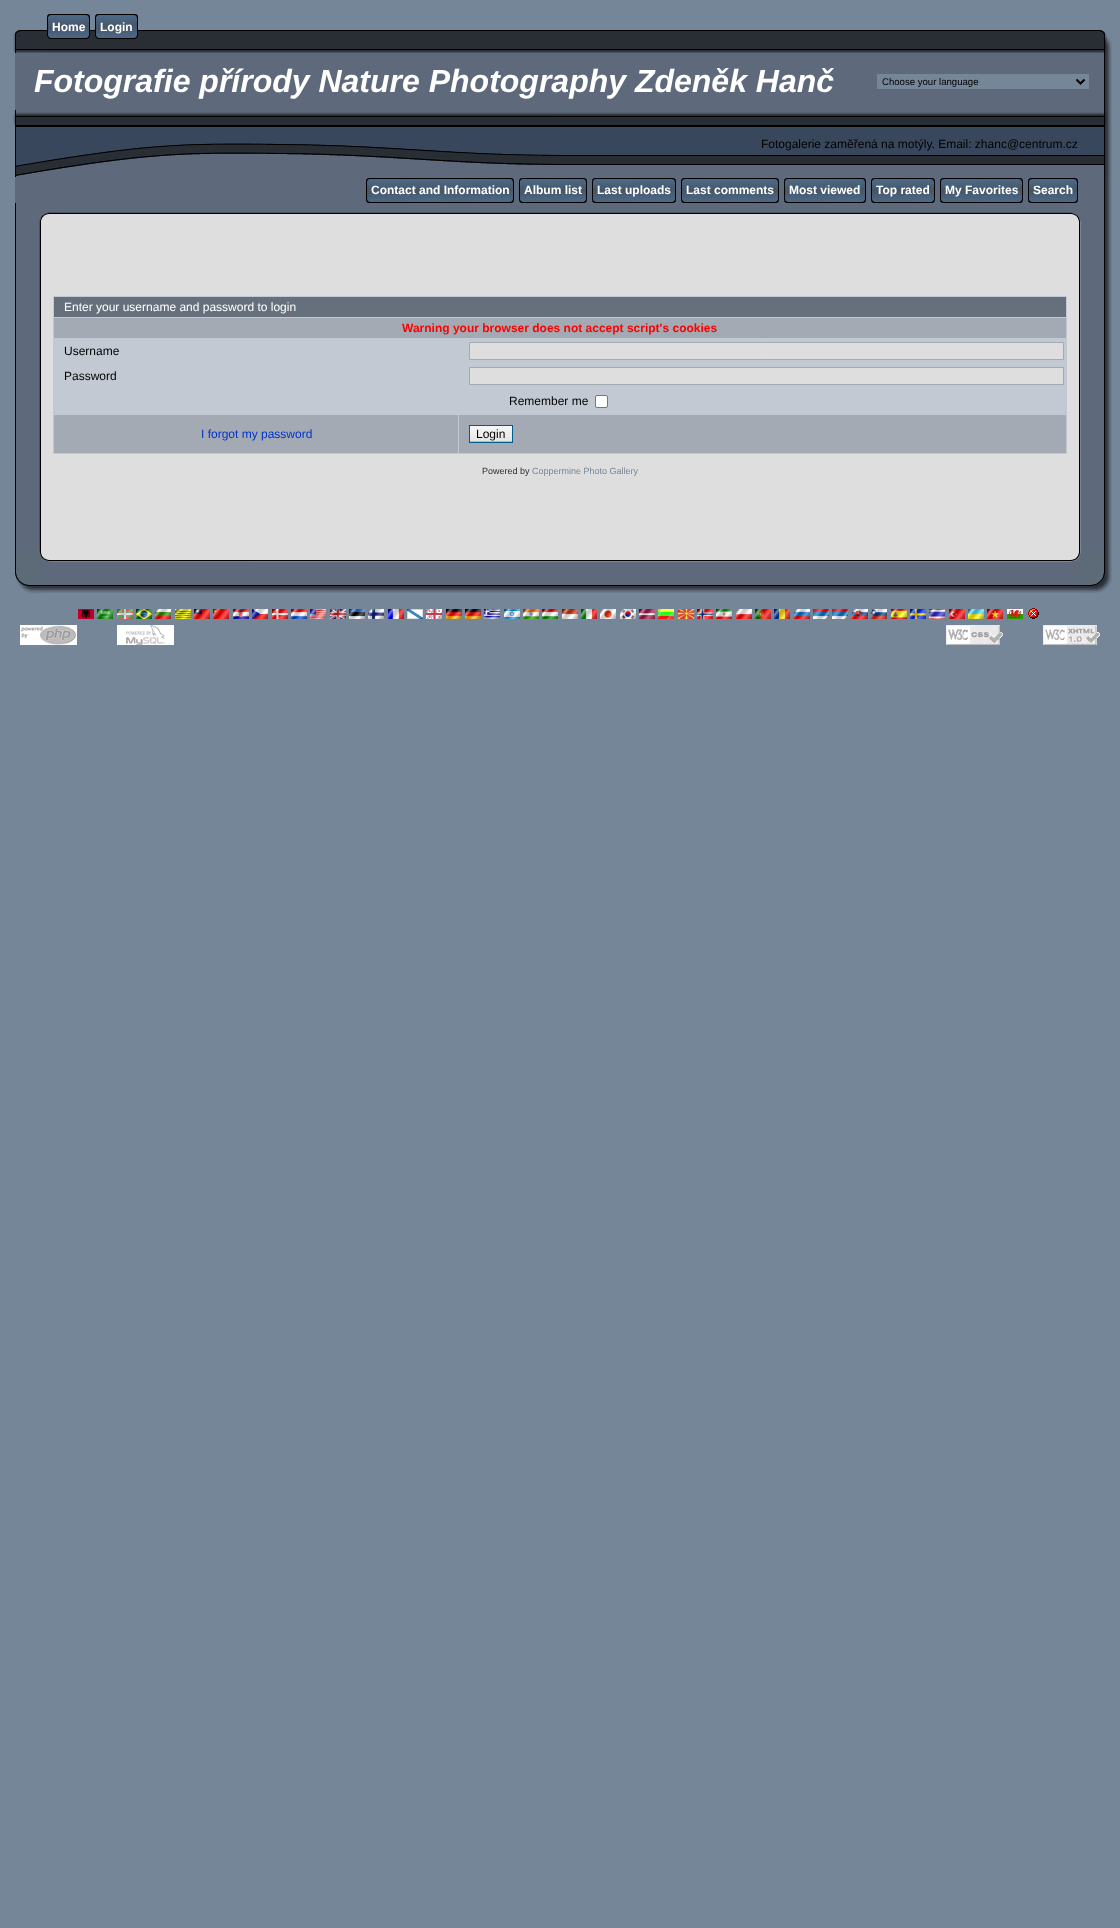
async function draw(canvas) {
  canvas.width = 1120
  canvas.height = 1928
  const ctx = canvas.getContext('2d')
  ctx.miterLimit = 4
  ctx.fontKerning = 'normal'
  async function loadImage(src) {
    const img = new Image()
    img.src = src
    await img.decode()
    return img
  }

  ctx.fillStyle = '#758698'
  ctx.fillRect(0, 0, 1120, 1928)
  ctx.drawImage(await loadImage('image0.png'), 42, 30, 1036, 23)
  ctx.drawImage(await loadImage('image1.png'), 47, 14, 5, 25)
  ctx.drawImage(await loadImage('image2.png'), 52, 14, 33, 25)
  ctx.font = 'bold 12px Liberation Sans'
  ctx.fillStyle = '#fff'
  ctx.fillText('Home', 52, 31)
  ctx.drawImage(await loadImage('image3.png'), 85, 14, 5, 25)
  ctx.drawImage(await loadImage('image1.png'), 95, 14, 5, 25)
  ctx.drawImage(await loadImage('image4.png'), 100, 14, 33, 25)
  ctx.fillText('Login', 100, 31)
  ctx.drawImage(await loadImage('image3.png'), 133, 14, 5, 25)
  ctx.drawImage(await loadImage('image5.png'), 13, 30, 29, 23)
  ctx.drawImage(await loadImage('image6.png'), 1078, 30, 34, 23)
  ctx.fillStyle = '#5e697b'
  ctx.fillRect(15, 53, 1089, 57)
  ctx.drawImage(await loadImage('image7.png'), 1104, 53, 8, 57)
  ctx.font = 'italic bold 32px Liberation Sans'
  ctx.fillStyle = '#fff'
  ctx.fillText('Fotografie přírody Nature Photography Zdeněk Hanč', 34, 92)
  ctx.fillStyle = '#758698'
  ctx.fillRect(877, 74, 212, 15)
  ctx.beginPath()
  ctx.moveTo(1076.5, 79.5)
  ctx.lineTo(1080.5, 83.5)
  ctx.lineTo(1084.5, 79.5)
  ctx.strokeStyle = '#000'
  ctx.lineWidth = 2
  ctx.stroke()
  ctx.font = '9.6px Liberation Sans'
  ctx.fillStyle = '#000'
  ctx.fillText('Choose your language', 882, 85)
  ctx.drawImage(await loadImage('image8.png'), 13, 110, 547, 67)
  ctx.drawImage(await loadImage('image9.png'), 560, 110, 518, 67)
  ctx.font = '12px Liberation Sans'
  ctx.fillText('Fotogalerie zaměřená na motýly. Email: zhanc@centrum.cz', 761, 148)
  ctx.drawImage(await loadImage('image10.png'), 1078, 110, 34, 67)
  ctx.fillStyle = '#5e697b'
  ctx.fillRect(15, 177, 1063, 26)
  ctx.drawImage(await loadImage('image11.png'), 1078, 177, 34, 26)
  ctx.drawImage(await loadImage('image12.png'), 366, 178, 5, 25)
  ctx.drawImage(await loadImage('image13.png'), 371, 178, 138, 25)
  ctx.font = 'bold 12px Liberation Sans'
  ctx.fillStyle = '#fff'
  ctx.fillText('Contact and Information', 371, 194)
  ctx.drawImage(await loadImage('image14.png'), 509, 178, 5, 25)
  ctx.drawImage(await loadImage('image12.png'), 519, 178, 5, 25)
  ctx.drawImage(await loadImage('image15.png'), 524, 178, 58, 25)
  ctx.fillText('Album list', 524, 194)
  ctx.drawImage(await loadImage('image14.png'), 582, 178, 5, 25)
  ctx.drawImage(await loadImage('image12.png'), 592, 178, 5, 25)
  ctx.drawImage(await loadImage('image16.png'), 597, 178, 74, 25)
  ctx.fillText('Last uploads', 597, 194)
  ctx.drawImage(await loadImage('image14.png'), 671, 178, 5, 25)
  ctx.drawImage(await loadImage('image12.png'), 681, 178, 5, 25)
  ctx.drawImage(await loadImage('image17.png'), 686, 178, 88, 25)
  ctx.fillText('Last comments', 686, 194)
  ctx.drawImage(await loadImage('image14.png'), 774, 178, 5, 25)
  ctx.drawImage(await loadImage('image12.png'), 784, 178, 5, 25)
  ctx.drawImage(await loadImage('image18.png'), 789, 178, 72, 25)
  ctx.fillText('Most viewed', 789, 194)
  ctx.drawImage(await loadImage('image14.png'), 861, 178, 5, 25)
  ctx.drawImage(await loadImage('image12.png'), 871, 178, 5, 25)
  ctx.drawImage(await loadImage('image19.png'), 876, 178, 54, 25)
  ctx.fillText('Top rated', 876, 194)
  ctx.drawImage(await loadImage('image14.png'), 930, 178, 5, 25)
  ctx.drawImage(await loadImage('image12.png'), 940, 178, 5, 25)
  ctx.drawImage(await loadImage('image20.png'), 945, 178, 73, 25)
  ctx.fillText('My Favorites', 945, 194)
  ctx.drawImage(await loadImage('image14.png'), 1018, 178, 5, 25)
  ctx.drawImage(await loadImage('image12.png'), 1028, 178, 5, 25)
  ctx.drawImage(await loadImage('image21.png'), 1033, 178, 40, 25)
  ctx.fillText('Search', 1033, 194)
  ctx.drawImage(await loadImage('image14.png'), 1073, 178, 5, 25)
  ctx.drawImage(await loadImage('image22.png'), 15, 203, 27, 18)
  ctx.drawImage(await loadImage('image23.png'), 42, 203, 14, 18)
  ctx.drawImage(await loadImage('image24.png'), 56, 203, 1008, 18)
  ctx.drawImage(await loadImage('image25.png'), 1064, 203, 14, 18)
  ctx.drawImage(await loadImage('image26.png'), 1078, 203, 34, 18)
  ctx.drawImage(await loadImage('image27.png'), 15, 221, 27, 328)
  ctx.fillStyle = '#dedede'
  ctx.fillRect(42, 221, 1036, 328)
  ctx.fillStyle = '#c2c9d3'
  ctx.fillRect(53, 296, 1014, 158)
  ctx.fillStyle = '#66707c'
  ctx.fillRect(54, 297, 1012, 20)
  ctx.font = '12px Liberation Sans'
  ctx.fillStyle = '#fff'
  ctx.fillText('Enter your username and password to login', 64, 311)
  ctx.fillStyle = '#a3aab4'
  ctx.fillRect(54, 318, 1012, 20)
  ctx.font = 'bold 12px Liberation Sans'
  ctx.fillStyle = '#f00'
  ctx.fillText('Warning your browser does not accept script\'s cookies', 402, 332)
  ctx.font = '12px Liberation Sans'
  ctx.fillStyle = '#000'
  ctx.fillText('Username', 64, 355)
  ctx.fillStyle = '#dedede'
  ctx.beginPath()
  ctx.rect(469.5, 342.5, 594, 17)
  ctx.fill()
  ctx.strokeStyle = '#a3aab4'
  ctx.lineWidth = 1
  ctx.stroke()
  ctx.fillStyle = '#000'
  ctx.fillText('Password', 64, 380)
  ctx.fillStyle = '#dedede'
  ctx.beginPath()
  ctx.rect(469.5, 367.5, 594, 17)
  ctx.fill()
  ctx.stroke()
  ctx.fillStyle = '#000'
  ctx.fillText('Remember me', 509, 405)
  ctx.fillStyle = '#fff'
  ctx.beginPath()
  ctx.roundRect(595.5, 395.5, 12, 12, 1.5)
  ctx.fill()
  ctx.strokeStyle = '#767676'
  ctx.stroke()
  ctx.fillStyle = '#a3aab4'
  ctx.fillRect(54, 415, 404, 38)
  ctx.fillStyle = '#03c'
  ctx.fillText('I forgot my password', 201, 438)
  ctx.fillStyle = '#a3aab4'
  ctx.fillRect(459, 415, 607, 38)
  ctx.drawImage(await loadImage('image28.png'), 470, 426, 42, 16)
  ctx.strokeStyle = '#005d8c'
  ctx.strokeRect(469.5, 425.5, 43, 17)
  ctx.fillStyle = '#000'
  ctx.fillText('Login', 476, 438)
  ctx.font = '9px Liberation Sans'
  ctx.fillStyle = '#292e34'
  ctx.fillText('Powered by', 482, 474)
  ctx.fillStyle = '#758698'
  ctx.fillText('Coppermine Photo Gallery', 532, 474)
  ctx.drawImage(await loadImage('image29.png'), 1078, 221, 34, 328)
  ctx.drawImage(await loadImage('image30.png'), 15, 549, 27, 45)
  ctx.drawImage(await loadImage('image31.png'), 42, 549, 208, 44)
  ctx.drawImage(await loadImage('image32.png'), 250, 549, 620, 44)
  ctx.drawImage(await loadImage('image33.png'), 870, 549, 208, 44)
  ctx.drawImage(await loadImage('image34.png'), 1078, 549, 34, 44)
  ctx.drawImage(await loadImage('image35.png'), 78, 609, 16, 10)
  ctx.drawImage(await loadImage('image36.png'), 97, 609, 16, 10)
  ctx.drawImage(await loadImage('image37.png'), 117, 609, 16, 10)
  ctx.drawImage(await loadImage('image38.png'), 136, 609, 16, 10)
  ctx.drawImage(await loadImage('image39.png'), 155, 609, 16, 10)
  ctx.drawImage(await loadImage('image40.png'), 175, 609, 16, 10)
  ctx.drawImage(await loadImage('image41.png'), 194, 609, 16, 10)
  ctx.drawImage(await loadImage('image42.png'), 213, 609, 16, 10)
  ctx.drawImage(await loadImage('image43.png'), 233, 609, 16, 10)
  ctx.drawImage(await loadImage('image44.png'), 252, 609, 16, 10)
  ctx.drawImage(await loadImage('image45.png'), 272, 609, 16, 10)
  ctx.drawImage(await loadImage('image46.png'), 291, 609, 16, 10)
  ctx.drawImage(await loadImage('image47.png'), 310, 609, 16, 10)
  ctx.drawImage(await loadImage('image48.png'), 330, 609, 16, 10)
  ctx.drawImage(await loadImage('image49.png'), 349, 609, 16, 10)
  ctx.drawImage(await loadImage('image50.png'), 368, 609, 16, 10)
  ctx.drawImage(await loadImage('image51.png'), 388, 609, 16, 10)
  ctx.drawImage(await loadImage('image52.png'), 407, 609, 16, 10)
  ctx.drawImage(await loadImage('image53.png'), 426, 609, 16, 10)
  ctx.drawImage(await loadImage('image54.png'), 446, 609, 16, 10)
  ctx.drawImage(await loadImage('image54.png'), 465, 609, 16, 10)
  ctx.drawImage(await loadImage('image55.png'), 484, 609, 16, 10)
  ctx.drawImage(await loadImage('image56.png'), 504, 609, 16, 10)
  ctx.drawImage(await loadImage('image57.png'), 523, 609, 16, 10)
  ctx.drawImage(await loadImage('image58.png'), 542, 609, 16, 10)
  ctx.drawImage(await loadImage('image59.png'), 562, 609, 16, 10)
  ctx.drawImage(await loadImage('image60.png'), 581, 609, 16, 10)
  ctx.drawImage(await loadImage('image61.png'), 600, 609, 16, 10)
  ctx.drawImage(await loadImage('image62.png'), 620, 609, 16, 10)
  ctx.drawImage(await loadImage('image63.png'), 639, 609, 16, 10)
  ctx.drawImage(await loadImage('image64.png'), 658, 609, 16, 10)
  ctx.drawImage(await loadImage('image65.png'), 678, 609, 16, 10)
  ctx.drawImage(await loadImage('image66.png'), 697, 609, 16, 10)
  ctx.drawImage(await loadImage('image67.png'), 716, 609, 16, 10)
  ctx.drawImage(await loadImage('image68.png'), 736, 609, 16, 10)
  ctx.drawImage(await loadImage('image69.png'), 755, 609, 16, 10)
  ctx.drawImage(await loadImage('image70.png'), 774, 609, 16, 10)
  ctx.drawImage(await loadImage('image71.png'), 794, 609, 16, 10)
  ctx.drawImage(await loadImage('image72.png'), 813, 609, 16, 10)
  ctx.drawImage(await loadImage('image72.png'), 832, 609, 16, 10)
  ctx.drawImage(await loadImage('image73.png'), 852, 609, 16, 10)
  ctx.drawImage(await loadImage('image74.png'), 871, 609, 16, 10)
  ctx.drawImage(await loadImage('image75.png'), 891, 609, 16, 10)
  ctx.drawImage(await loadImage('image76.png'), 910, 609, 16, 10)
  ctx.drawImage(await loadImage('image77.png'), 929, 609, 16, 10)
  ctx.drawImage(await loadImage('image78.png'), 949, 609, 16, 10)
  ctx.drawImage(await loadImage('image79.png'), 968, 609, 16, 10)
  ctx.drawImage(await loadImage('image80.png'), 987, 609, 16, 10)
  ctx.drawImage(await loadImage('image81.png'), 1007, 609, 16, 10)
  ctx.drawImage(await loadImage('image82.png'), 1028, 608, 11, 11)
  ctx.drawImage(await loadImage('image83.png'), 20, 625, 57, 20)
  ctx.drawImage(await loadImage('image84.png'), 117, 625, 57, 20)
  ctx.drawImage(await loadImage('image85.png'), 946, 625, 57, 20)
  ctx.drawImage(await loadImage('image86.png'), 1043, 625, 57, 20)
}

draw(document.querySelector('canvas'))
